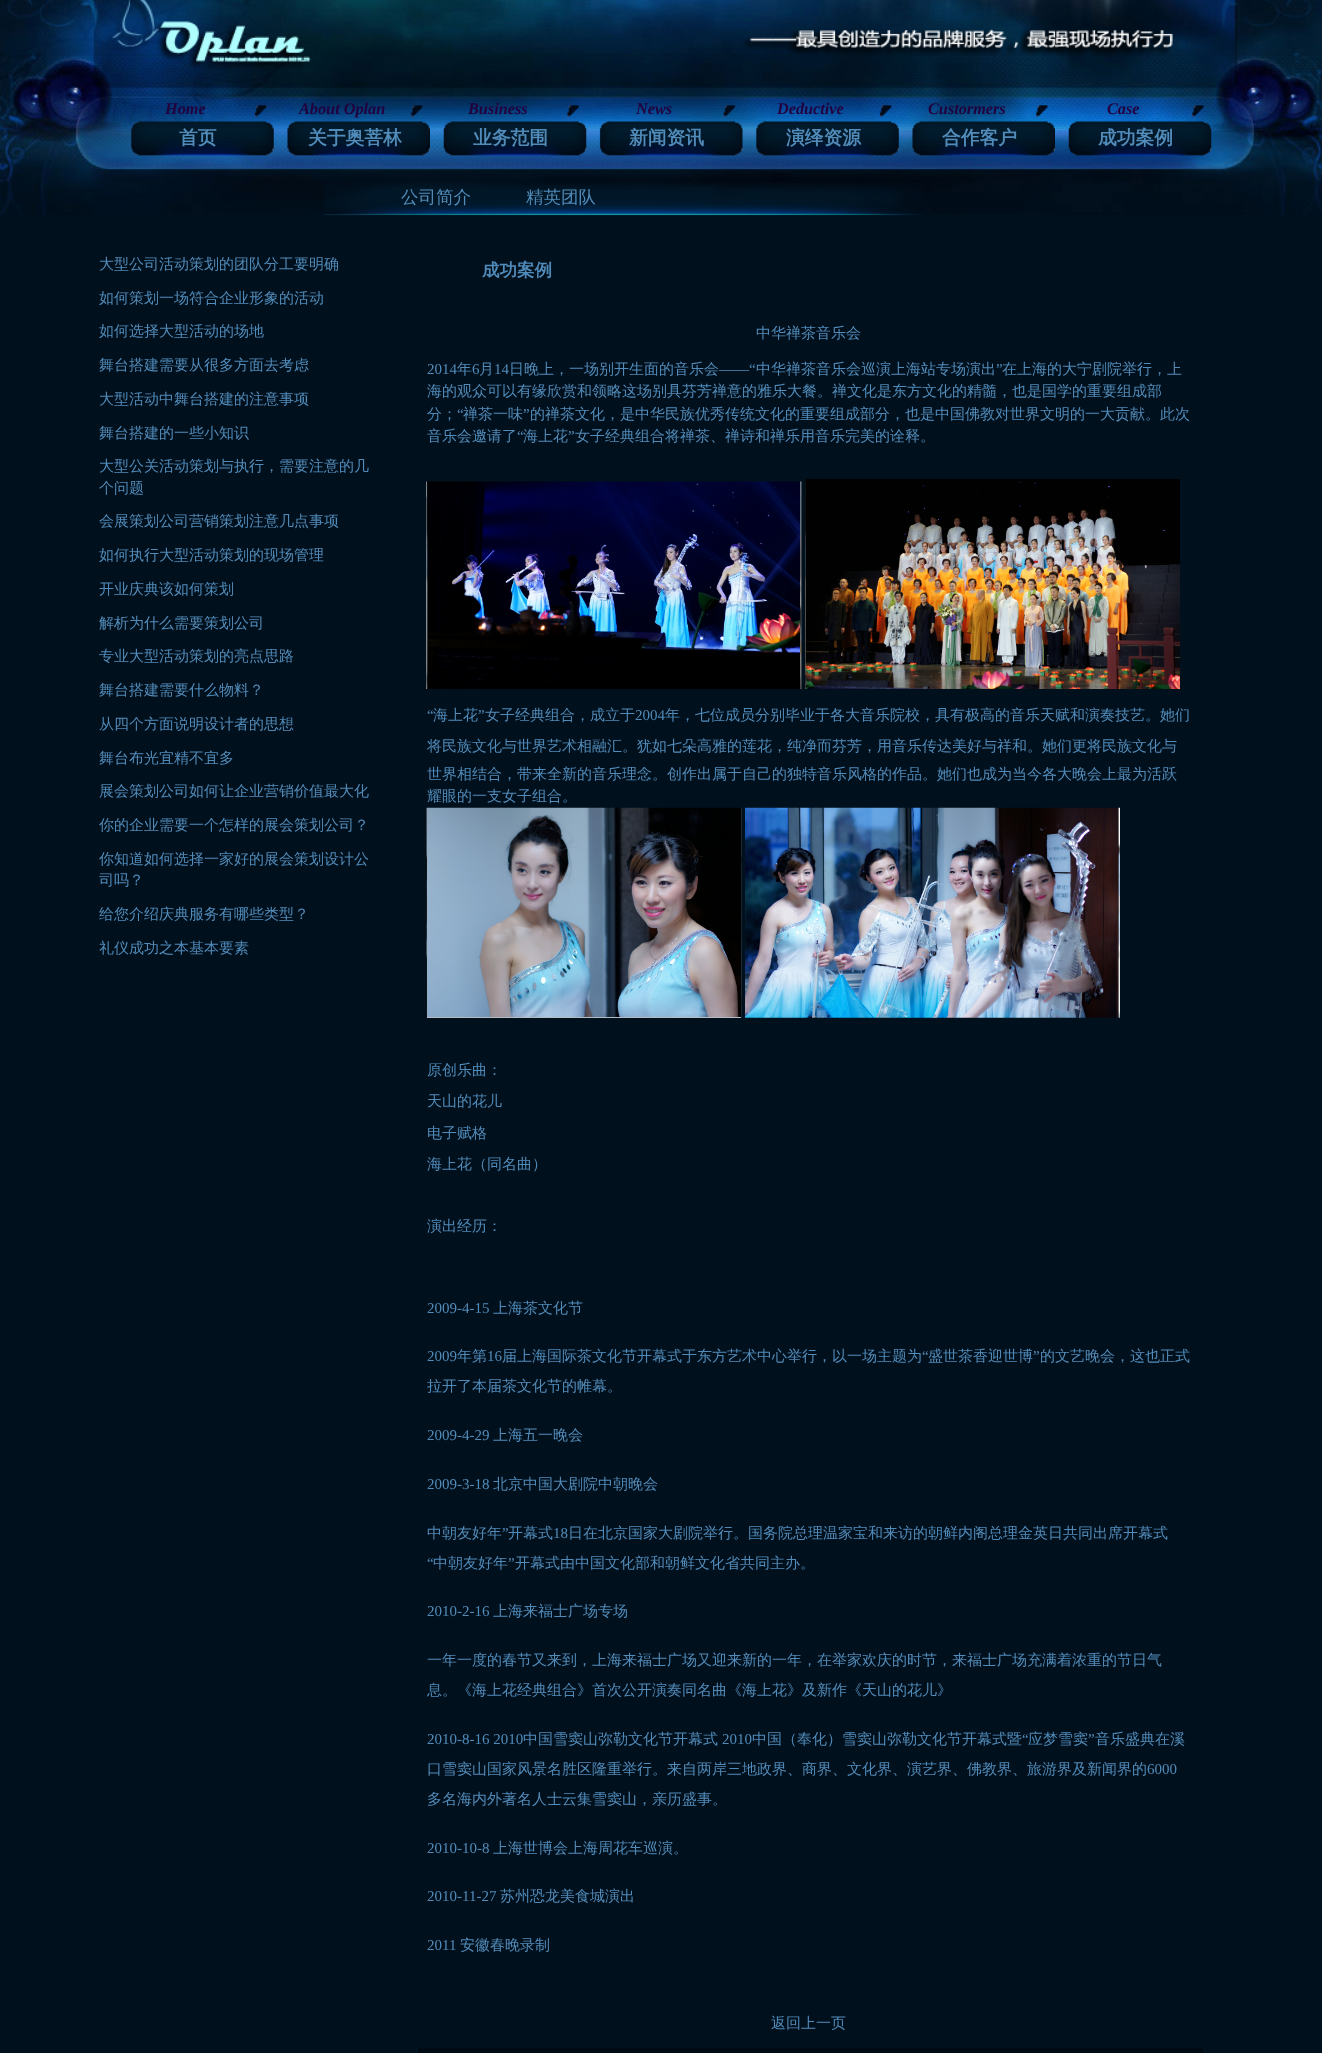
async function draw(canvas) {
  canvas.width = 1322
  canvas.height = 2053
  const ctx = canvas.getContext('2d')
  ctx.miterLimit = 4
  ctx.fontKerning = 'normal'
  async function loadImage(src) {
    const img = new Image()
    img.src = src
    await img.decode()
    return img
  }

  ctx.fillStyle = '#00101d'
  ctx.fillRect(0, 0, 1322, 2053)
  ctx.drawImage(await loadImage('image0.png'), 0, 0, 1322, 215)
  ctx.drawImage(await loadImage('image1.png'), 131, 105, 143, 51)
  ctx.font = 'italic bold 16.25px Liberation Serif'
  ctx.fillStyle = '#22003e'
  ctx.fillText('Home', 165, 114)
  ctx.font = 'bold 18.75px WenQuanYi Zen Hei'
  ctx.fillStyle = '#518bb9'
  ctx.fillText('首页', 179, 144)
  ctx.drawImage(await loadImage('image2.png'), 287, 105, 143, 51)
  ctx.font = 'italic bold 16.25px Liberation Serif'
  ctx.fillStyle = '#22003e'
  ctx.fillText('About Oplan', 299, 114)
  ctx.font = 'bold 18.75px WenQuanYi Zen Hei'
  ctx.fillStyle = '#518bb9'
  ctx.fillText('关于奥菩林', 308, 144)
  ctx.drawImage(await loadImage('image3.png'), 443, 105, 144, 51)
  ctx.font = 'italic bold 16.25px Liberation Serif'
  ctx.fillStyle = '#22003e'
  ctx.fillText('Business', 468, 114)
  ctx.font = 'bold 18.75px WenQuanYi Zen Hei'
  ctx.fillStyle = '#518bb9'
  ctx.fillText('业务范围', 473, 144)
  ctx.drawImage(await loadImage('image4.png'), 599, 105, 144, 51)
  ctx.font = 'italic bold 16.25px Liberation Serif'
  ctx.fillStyle = '#22003e'
  ctx.fillText('News', 636, 114)
  ctx.font = 'bold 18.75px WenQuanYi Zen Hei'
  ctx.fillStyle = '#518bb9'
  ctx.fillText('新闻资讯', 629, 144)
  ctx.drawImage(await loadImage('image5.png'), 756, 105, 143, 51)
  ctx.font = 'italic bold 16.25px Liberation Serif'
  ctx.fillStyle = '#22003e'
  ctx.fillText('Deductive', 777, 114)
  ctx.font = 'bold 18.75px WenQuanYi Zen Hei'
  ctx.fillStyle = '#518bb9'
  ctx.fillText('演绎资源', 786, 144)
  ctx.drawImage(await loadImage('image6.png'), 912, 105, 143, 51)
  ctx.font = 'italic bold 16.25px Liberation Serif'
  ctx.fillStyle = '#22003e'
  ctx.fillText('Custormers', 928, 114)
  ctx.font = 'bold 18.75px WenQuanYi Zen Hei'
  ctx.fillStyle = '#518bb9'
  ctx.fillText('合作客户', 942, 144)
  ctx.drawImage(await loadImage('image7.png'), 1068, 105, 144, 51)
  ctx.font = 'italic bold 16.25px Liberation Serif'
  ctx.fillStyle = '#22003e'
  ctx.fillText('Case', 1107, 114)
  ctx.font = 'bold 18.75px WenQuanYi Zen Hei'
  ctx.fillStyle = '#518bb9'
  ctx.fillText('成功案例', 1098, 144)
  ctx.drawImage(await loadImage('image8.png'), 323, 182, 601, 34)
  ctx.font = '500 17.5px WenQuanYi Zen Hei'
  ctx.fillText('公司简介', 401, 203)
  ctx.fillText('精英团队', 526, 203)
  ctx.font = '500 15px WenQuanYi Zen Hei'
  ctx.fillText('大型公司活动策划的团队分工要明确', 99, 269)
  ctx.fillText('如何策划一场符合企业形象的活动', 99, 303)
  ctx.fillText('如何选择大型活动的场地', 99, 336)
  ctx.fillText('舞台搭建需要从很多方面去考虑', 99, 370)
  ctx.fillText('大型活动中舞台搭建的注意事项', 99, 404)
  ctx.fillText('舞台搭建的一些小知识', 99, 438)
  ctx.fillText('大型公关活动策划与执行，需要注意的几', 99, 471)
  ctx.fillText('个问题', 99, 493)
  ctx.fillText('会展策划公司营销策划注意几点事项', 99, 526)
  ctx.fillText('如何执行大型活动策划的现场管理', 99, 560)
  ctx.fillText('开业庆典该如何策划', 99, 594)
  ctx.fillText('解析为什么需要策划公司', 99, 628)
  ctx.fillText('专业大型活动策划的亮点思路', 99, 661)
  ctx.fillText('舞台搭建需要什么物料？', 99, 695)
  ctx.fillText('从四个方面说明设计者的思想', 99, 729)
  ctx.fillText('舞台布光宜精不宜多', 99, 763)
  ctx.fillText('展会策划公司如何让企业营销价值最大化', 99, 796)
  ctx.fillText('你的企业需要一个怎样的展会策划公司？', 99, 830)
  ctx.fillText('你知道如何选择一家好的展会策划设计公', 99, 864)
  ctx.fillText('司吗？', 99, 885)
  ctx.fillText('给您介绍庆典服务有哪些类型？', 99, 919)
  ctx.fillText('礼仪成功之本基本要素', 99, 953)
  ctx.font = 'bold 17.5px WenQuanYi Zen Hei'
  ctx.fillText('成功案例', 482, 276)
  ctx.font = '500 15px WenQuanYi Zen Hei'
  ctx.fillText('中华禅茶音乐会', 756, 338)
  ctx.font = '15px Liberation Serif'
  ctx.fillText('2014', 427, 374)
  ctx.font = '500 15px WenQuanYi Zen Hei'
  ctx.fillText('年', 457, 374)
  ctx.font = '15px Liberation Serif'
  ctx.fillText('6', 472, 374)
  ctx.font = '500 15px WenQuanYi Zen Hei'
  ctx.fillText('月', 479, 374)
  ctx.font = '15px Liberation Serif'
  ctx.fillText('14', 494, 374)
  ctx.font = '500 15px WenQuanYi Zen Hei'
  ctx.fillText('日晚上，一场别开生面的音乐会', 509, 374)
  ctx.font = '15px Liberation Serif'
  ctx.fillText('——“', 719, 374)
  ctx.font = '500 15px WenQuanYi Zen Hei'
  ctx.fillText('中华禅茶音乐会巡演上海站专场演出', 756, 374)
  ctx.font = '15px Liberation Serif'
  ctx.fillText('”', 996, 374)
  ctx.font = '500 15px WenQuanYi Zen Hei'
  ctx.fillText('在上海的大宁剧院举行，上', 1002, 374)
  ctx.fillText('海的观众可以有缘欣赏和领略这场别具芬芳禅意的雅乐大餐。禅文化是东方文化的精髓，也是国学的重要组成部', 427, 396)
  ctx.fillText('分；', 427, 419)
  ctx.font = '15px Liberation Serif'
  ctx.fillText('“', 457, 419)
  ctx.font = '500 15px WenQuanYi Zen Hei'
  ctx.fillText('禅茶一味', 463, 419)
  ctx.font = '15px Liberation Serif'
  ctx.fillText('”', 523, 419)
  ctx.font = '500 15px WenQuanYi Zen Hei'
  ctx.fillText('的禅茶文化，是中华民族优秀传统文化的重要组成部分，也是中国佛教对世界文明的一大贡献。此次', 530, 419)
  ctx.fillText('音乐会邀请了', 427, 441)
  ctx.font = '15px Liberation Serif'
  ctx.fillText('“', 517, 441)
  ctx.font = '500 15px WenQuanYi Zen Hei'
  ctx.fillText('海上花', 523, 441)
  ctx.font = '15px Liberation Serif'
  ctx.fillText('”', 568, 441)
  ctx.font = '500 15px WenQuanYi Zen Hei'
  ctx.fillText('女子经典组合将禅茶、禅诗和禅乐用音乐完美的诠释。', 575, 441)
  ctx.drawImage(await loadImage('image9.png'), 426, 481, 376, 208)
  ctx.drawImage(await loadImage('image10.png'), 805, 479, 375, 210)
  ctx.font = '15px Liberation Serif'
  ctx.fillText('“', 427, 720)
  ctx.font = '500 15px WenQuanYi Zen Hei'
  ctx.fillText('海上花', 433, 720)
  ctx.font = '15px Liberation Serif'
  ctx.fillText('”', 478, 720)
  ctx.font = '500 15px WenQuanYi Zen Hei'
  ctx.fillText('女子经典组合，成立于', 485, 720)
  ctx.font = '15px Liberation Serif'
  ctx.fillText('2004', 635, 720)
  ctx.font = '500 15px WenQuanYi Zen Hei'
  ctx.fillText('年，七位成员分别毕业于各大音乐院校，具有极高的音乐天赋和演奏技艺。她们', 665, 720)
  ctx.fillText('将民族文化与世界艺术相融汇。犹如七朵高雅的莲花，纯净而芬芳，用音乐传达美好与祥和。她们更将民族文化与', 427, 751)
  ctx.fillText('世界相结合，带来全新的音乐理念。创作出属于自己的独特音乐风格的作品。她们也成为当今各大晚会上最为活跃', 427, 779)
  ctx.fillText('耀眼的一支女子组合。', 427, 801)
  ctx.drawImage(await loadImage('image11.png'), 426, 807, 316, 211)
  ctx.drawImage(await loadImage('image12.png'), 745, 807, 375, 211)
  ctx.fillText('原创乐曲：', 427, 1075)
  ctx.fillText('天山的花儿', 427, 1106)
  ctx.fillText('电子赋格', 427, 1138)
  ctx.fillText('海上花（同名曲）', 427, 1169)
  ctx.fillText('演出经历：', 427, 1231)
  ctx.font = '15px Liberation Serif'
  ctx.fillText('2009-4-15', 427, 1313)
  ctx.font = '500 15px WenQuanYi Zen Hei'
  ctx.fillText('上海茶文化节', 493, 1313)
  ctx.font = '15px Liberation Serif'
  ctx.fillText('2009', 427, 1361)
  ctx.font = '500 15px WenQuanYi Zen Hei'
  ctx.fillText('年第', 457, 1361)
  ctx.font = '15px Liberation Serif'
  ctx.fillText('16', 487, 1361)
  ctx.font = '500 15px WenQuanYi Zen Hei'
  ctx.fillText('届上海国际茶文化节开幕式于东方艺术中心举行，以一场主题为', 502, 1361)
  ctx.font = '15px Liberation Serif'
  ctx.fillText('“', 922, 1361)
  ctx.font = '500 15px WenQuanYi Zen Hei'
  ctx.fillText('盛世茶香迎世博', 928, 1361)
  ctx.font = '15px Liberation Serif'
  ctx.fillText('”', 1033, 1361)
  ctx.font = '500 15px WenQuanYi Zen Hei'
  ctx.fillText('的文艺晚会，这也正式', 1040, 1361)
  ctx.fillText('拉开了本届茶文化节的帷幕。', 427, 1391)
  ctx.font = '15px Liberation Serif'
  ctx.fillText('2009-4-29', 427, 1440)
  ctx.font = '500 15px WenQuanYi Zen Hei'
  ctx.fillText('上海五一晚会', 493, 1440)
  ctx.font = '15px Liberation Serif'
  ctx.fillText('2009-3-18', 427, 1489)
  ctx.font = '500 15px WenQuanYi Zen Hei'
  ctx.fillText('北京中国大剧院中朝晚会', 493, 1489)
  ctx.fillText('中朝友好年', 427, 1538)
  ctx.font = '15px Liberation Serif'
  ctx.fillText('”', 502, 1538)
  ctx.font = '500 15px WenQuanYi Zen Hei'
  ctx.fillText('开幕式', 508, 1538)
  ctx.font = '15px Liberation Serif'
  ctx.fillText('18', 553, 1538)
  ctx.font = '500 15px WenQuanYi Zen Hei'
  ctx.fillText('日在北京国家大剧院举行。国务院总理温家宝和来访的朝鲜内阁总理金英日共同出席开幕式', 568, 1538)
  ctx.font = '15px Liberation Serif'
  ctx.fillText('“', 427, 1568)
  ctx.font = '500 15px WenQuanYi Zen Hei'
  ctx.fillText('中朝友好年', 433, 1568)
  ctx.font = '15px Liberation Serif'
  ctx.fillText('”', 508, 1568)
  ctx.font = '500 15px WenQuanYi Zen Hei'
  ctx.fillText('开幕式由中国文化部和朝鲜文化省共同主办。', 515, 1568)
  ctx.font = '15px Liberation Serif'
  ctx.fillText('2010-2-16', 427, 1616)
  ctx.font = '500 15px WenQuanYi Zen Hei'
  ctx.fillText('上海来福士广场专场', 493, 1616)
  ctx.fillText('一年一度的春节又来到，上海来福士广场又迎来新的一年，在举家欢庆的时节，来福士广场充满着浓重的节日气', 427, 1665)
  ctx.fillText('息。《海上花经典组合》首次公开演奏同名曲《海上花》及新作《天山的花儿》', 427, 1695)
  ctx.font = '15px Liberation Serif'
  ctx.fillText('2010-8-16 2010', 427, 1744)
  ctx.font = '500 15px WenQuanYi Zen Hei'
  ctx.fillText('中国雪窦山弥勒文化节开幕式', 523, 1744)
  ctx.font = '15px Liberation Serif'
  ctx.fillText('2010', 722, 1744)
  ctx.font = '500 15px WenQuanYi Zen Hei'
  ctx.fillText('中国（奉化）雪窦山弥勒文化节开幕式暨', 752, 1744)
  ctx.font = '15px Liberation Serif'
  ctx.fillText('“', 1022, 1744)
  ctx.font = '500 15px WenQuanYi Zen Hei'
  ctx.fillText('应梦雪窦', 1028, 1744)
  ctx.font = '15px Liberation Serif'
  ctx.fillText('”', 1088, 1744)
  ctx.font = '500 15px WenQuanYi Zen Hei'
  ctx.fillText('音乐盛典在溪', 1095, 1744)
  ctx.fillText('口雪窦山国家风景名胜区隆重举行。来自两岸三地政界、商界、文化界、演艺界、佛教界、旅游界及新闻界的', 427, 1774)
  ctx.font = '15px Liberation Serif'
  ctx.fillText('6000', 1147, 1774)
  ctx.font = '500 15px WenQuanYi Zen Hei'
  ctx.fillText('多名海内外著名人士云集雪窦山，亲历盛事。', 427, 1804)
  ctx.font = '15px Liberation Serif'
  ctx.fillText('2010-10-8', 427, 1853)
  ctx.font = '500 15px WenQuanYi Zen Hei'
  ctx.fillText('上海世博会上海周花车巡演。', 493, 1853)
  ctx.font = '15px Liberation Serif'
  ctx.fillText('2010-11-27', 427, 1901)
  ctx.font = '500 15px WenQuanYi Zen Hei'
  ctx.fillText('苏州恐龙美食城演出', 500, 1901)
  ctx.font = '15px Liberation Serif'
  ctx.fillText('2011', 427, 1950)
  ctx.font = '500 15px WenQuanYi Zen Hei'
  ctx.fillText('安徽春晚录制', 460, 1950)
  ctx.fillText('返回上一页', 771, 2028)
  ctx.drawImage(await loadImage('image13.png'), 416, 2048, 789, 5)
}

draw(document.querySelector('canvas'))
